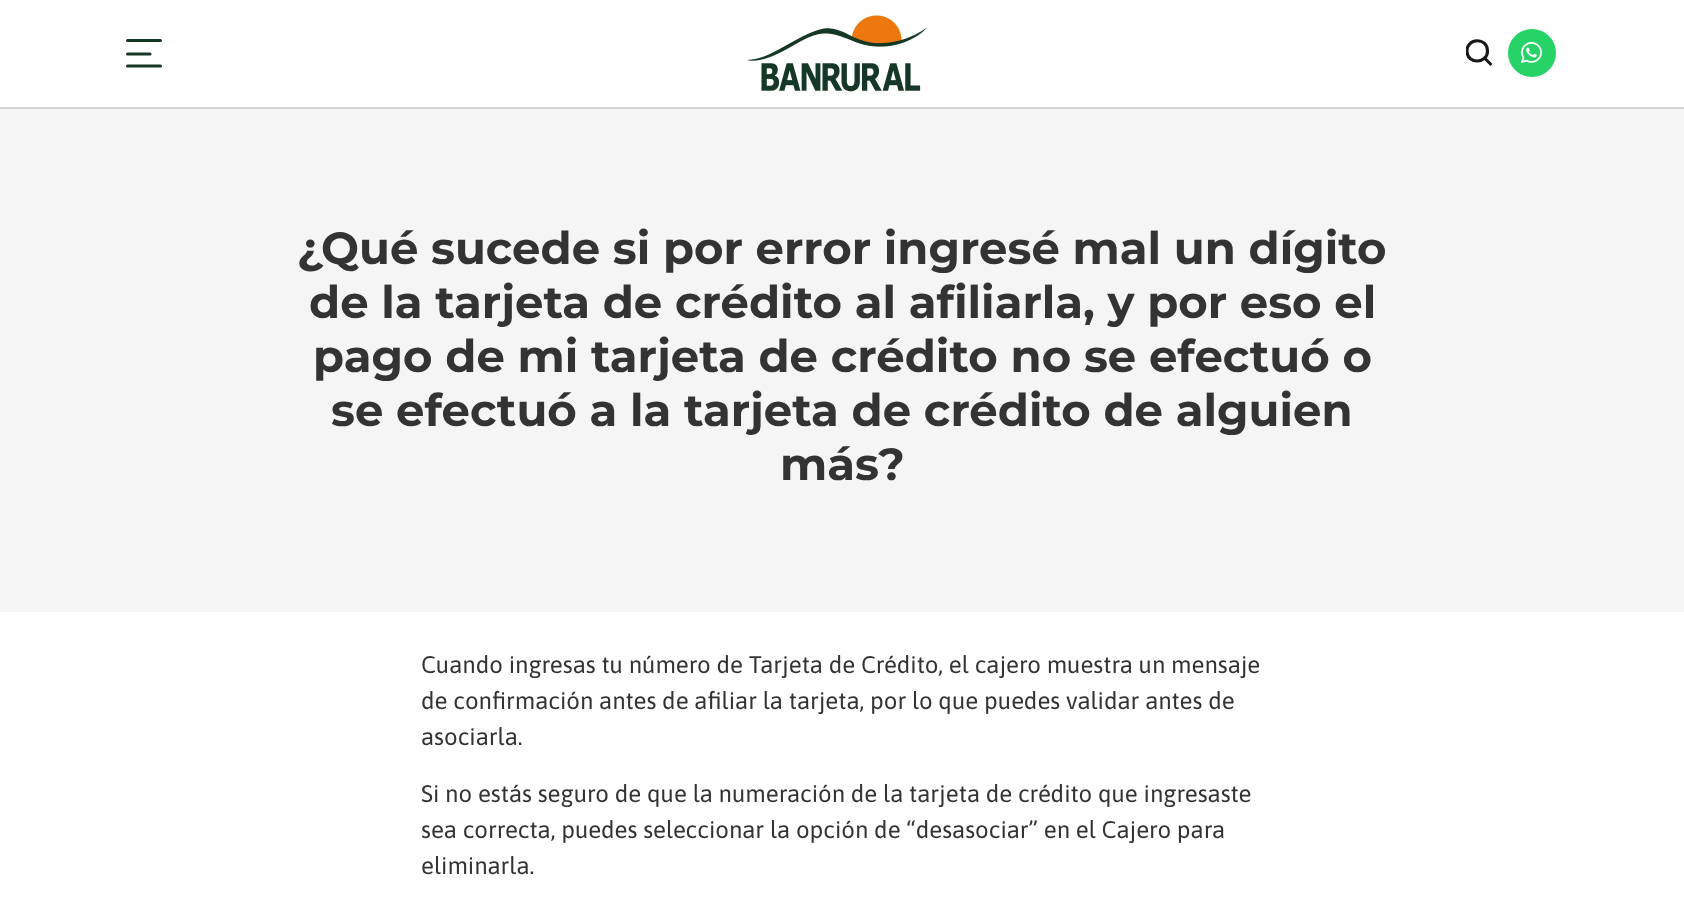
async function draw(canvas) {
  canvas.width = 1684
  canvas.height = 897
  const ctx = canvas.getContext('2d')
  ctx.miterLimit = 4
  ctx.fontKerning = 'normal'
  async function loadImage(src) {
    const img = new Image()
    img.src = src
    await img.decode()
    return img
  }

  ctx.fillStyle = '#fff'
  ctx.fillRect(0, 0, 1684, 897)
  ctx.fillStyle = '#d2d2d7'
  ctx.fillRect(0, 107, 1684, 2)
  ctx.beginPath()
  ctx.moveTo(127.5, 40.5)
  ctx.lineTo(160.5, 40.5)
  ctx.moveTo(127.5, 66)
  ctx.lineTo(160.5, 66)
  ctx.moveTo(127.5, 54)
  ctx.lineTo(150, 54)
  ctx.strokeStyle = '#153826'
  ctx.lineWidth = 3
  ctx.lineCap = 'round'
  ctx.stroke()
  ctx.drawImage(await loadImage('image0.png'), 747, 15, 180, 77)
  ctx.save()
  ctx.beginPath()
  ctx.rect(1466, 39, 27, 27)
  ctx.clip()
  ctx.beginPath()
  ctx.moveTo(1487.5, 51)
  ctx.bezierCurveTo(1487.5, 64, 1467.5, 64.5, 1467, 51.5)
  ctx.bezierCurveTo(1466.5, 37.5, 1487.5, 37, 1487.5, 51)
  ctx.closePath()
  ctx.strokeStyle = '#191919'
  ctx.lineWidth = 3.1
  ctx.lineJoin = 'round'
  ctx.stroke()
  ctx.restore()
  ctx.beginPath()
  ctx.moveTo(1490.5, 64)
  ctx.lineTo(1484.5, 58)
  ctx.strokeStyle = '#191919'
  ctx.lineWidth = 3.1
  ctx.lineJoin = 'round'
  ctx.stroke()
  ctx.fillStyle = '#25d366'
  ctx.beginPath()
  ctx.arc(1532, 53, 24, 0, 2 * Math.PI)
  ctx.fill()
  ctx.drawImage(await loadImage('image1.png'), 1521, 42, 21, 21)
  ctx.fillStyle = '#f5f5f5'
  ctx.fillRect(0, 109, 1684, 503)
  ctx.font = 'bold 45px Montserrat'
  ctx.fillStyle = '#333'
  ctx.fillText('¿Qué sucede si por error ingresé mal un dígito', 297, 264)
  ctx.fillText('de la tarjeta de crédito al afiliarla, y por eso el', 309, 318)
  ctx.fillText('pago de mi tarjeta de crédito no se efectuó o', 313, 372)
  ctx.fillText('se efectuó a la tarjeta de crédito de alguien', 331, 426)
  ctx.fillText('más?', 780, 480)
  ctx.font = '24px Asap'
  ctx.fillText('Cuando ingresas tu número de Tarjeta de Crédito, el cajero muestra un mensaje', 421, 673)
  ctx.fillText('de confirmación antes de afiliar la tarjeta, por lo que puedes validar antes de', 421, 709)
  ctx.fillText('asociarla.', 421, 745)
  ctx.fillText('Si no estás seguro de que la numeración de la tarjeta de crédito que ingresaste', 421, 802)
  ctx.fillText('sea correcta, puedes seleccionar la opción de “desasociar” en el Cajero para', 421, 838)
  ctx.fillText('eliminarla.', 421, 874)
}

draw(document.querySelector('canvas'))
